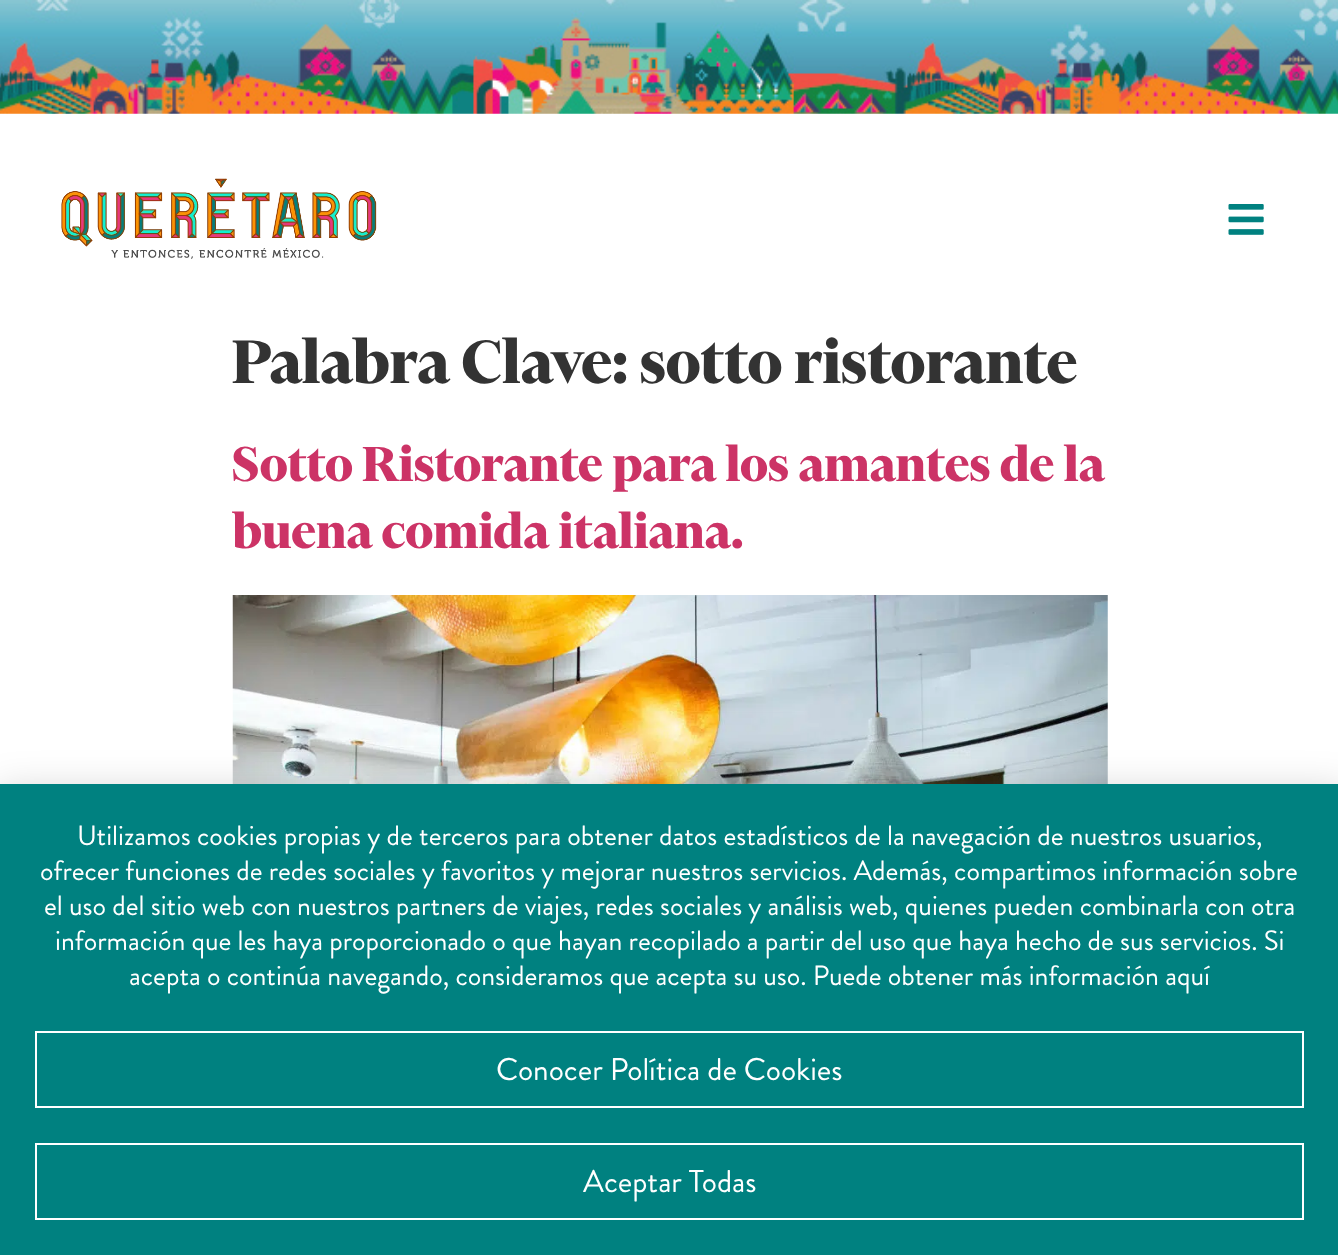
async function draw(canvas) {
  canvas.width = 1338
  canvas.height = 1255
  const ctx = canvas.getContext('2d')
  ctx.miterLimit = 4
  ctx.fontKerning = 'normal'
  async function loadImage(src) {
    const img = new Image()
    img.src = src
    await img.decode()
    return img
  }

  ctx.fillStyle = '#fff'
  ctx.fillRect(0, 0, 1338, 1255)
  ctx.drawImage(await loadImage('image0.png'), 0, 0, 1338, 114)
  ctx.drawImage(await loadImage('image1.png'), 61, 178, 316, 81)
  ctx.drawImage(await loadImage('image2.png'), 1228, 204, 36, 31)
  ctx.font = 'bold 70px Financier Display'
  ctx.fillStyle = '#333'
  ctx.fillText('Palabra Clave: sotto ristorante', 232, 383)
  ctx.font = 'bold 56px Financier Display'
  ctx.fillStyle = '#c36'
  ctx.fillText('Sotto Ristorante para los amantes de la', 232, 481)
  ctx.fillText('buena comida italiana.', 232, 548)
  ctx.drawImage(await loadImage('image3.png'), 232, 595, 876, 189)
  ctx.fillStyle = '#00000033'
  ctx.filter = 'blur(20px)'
  ctx.beginPath()
  ctx.rect(-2, 793, 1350, 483)
  ctx.fill()
  ctx.filter = 'none'
  ctx.fillStyle = '#008180'
  ctx.fillRect(0, 784, 1338, 471)
  ctx.font = '28px Brandon Grotesque'
  ctx.fillStyle = '#fff'
  ctx.fillText('Utilizamos cookies propias y de terceros para obtener datos estadísticos de la navegación de nuestros usuarios,', 77, 845)
  ctx.fillText('ofrecer funciones de redes sociales y favoritos y mejorar nuestros servicios. Además, compartimos información sobre', 40, 880)
  ctx.fillText('el uso del sitio web con nuestros partners de viajes, redes sociales y análisis web, quienes pueden combinarla con otra', 44, 915)
  ctx.fillText('información que les haya proporcionado o que hayan recopilado a partir del uso que haya hecho de sus servicios. Si', 55, 950)
  ctx.fillText('acepta o continúa navegando, consideramos que acepta su uso. Puede obtener más información aquí', 129, 985)
  ctx.strokeStyle = '#fff'
  ctx.lineWidth = 2
  ctx.strokeRect(36, 1032, 1267, 75)
  ctx.font = '31.5px Brandon Grotesque'
  ctx.fillText('Conocer Política de Cookies', 496, 1080)
  ctx.strokeRect(36, 1144, 1267, 75)
  ctx.fillText('Aceptar Todas', 583, 1192)
}

draw(document.querySelector('canvas'))
